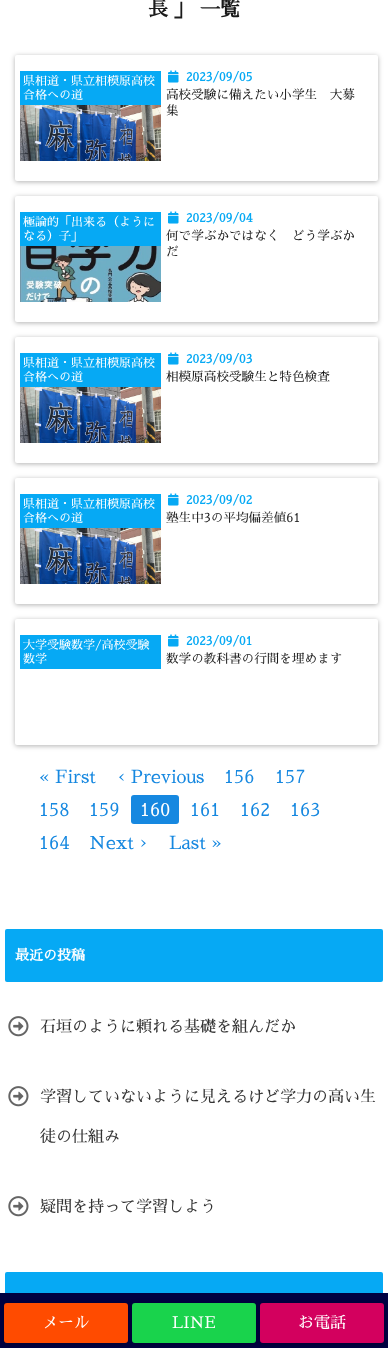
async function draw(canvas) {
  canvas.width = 388
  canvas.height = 1348
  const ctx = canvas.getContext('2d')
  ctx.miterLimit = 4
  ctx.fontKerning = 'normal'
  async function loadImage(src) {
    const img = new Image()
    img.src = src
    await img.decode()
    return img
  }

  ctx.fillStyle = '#fff'
  ctx.fillRect(0, 0, 388, 1348)
  ctx.font = 'bold 20px Sawarabi Mincho'
  ctx.fillStyle = '#1a1a1a'
  ctx.fillText('長 」 一覧', 148, 16)
  ctx.fillStyle = '#0000004d'
  ctx.filter = 'blur(2.5px)'
  ctx.beginPath()
  ctx.roundRect(15, 56, 363, 126, 2)
  ctx.fill()
  ctx.filter = 'none'
  ctx.fillStyle = '#fff'
  ctx.beginPath()
  ctx.roundRect(15, 55, 363, 126, 2)
  ctx.fill()
  ctx.fillStyle = '#06a9f4'
  ctx.fillRect(20, 71, 141, 34)
  ctx.font = '12px Sawarabi Mincho'
  ctx.fillStyle = '#fff'
  ctx.fillText('県相道・県立相模原高校', 23, 85)
  ctx.fillText('合格への道', 23, 99)
  ctx.drawImage(await loadImage('image0.png'), 20, 105, 141, 56)
  ctx.drawImage(await loadImage('image1.png'), 168, 70, 11, 13)
  ctx.font = 'bold 12px Sawarabi Mincho'
  ctx.fillStyle = '#06a9f4'
  ctx.fillText('2023/09/05', 186, 81)
  ctx.font = '12.6px Sawarabi Mincho'
  ctx.fillStyle = '#1a1a1a'
  ctx.fillText('高校受験に備えたい小学生　大募', 166, 99)
  ctx.fillText('集', 166, 115)
  ctx.fillStyle = '#0000004d'
  ctx.filter = 'blur(2.5px)'
  ctx.beginPath()
  ctx.roundRect(15, 197, 363, 126, 2)
  ctx.fill()
  ctx.filter = 'none'
  ctx.fillStyle = '#fff'
  ctx.beginPath()
  ctx.roundRect(15, 196, 363, 126, 2)
  ctx.fill()
  ctx.fillStyle = '#06a9f4'
  ctx.fillRect(20, 212, 141, 34)
  ctx.font = '12px Sawarabi Mincho'
  ctx.fillStyle = '#fff'
  ctx.fillText('極論的「出来る（ように', 23, 226)
  ctx.fillText('なる）子」', 23, 240)
  ctx.drawImage(await loadImage('image2.png'), 20, 246, 141, 56)
  ctx.drawImage(await loadImage('image1.png'), 168, 211, 11, 13)
  ctx.font = 'bold 12px Sawarabi Mincho'
  ctx.fillStyle = '#06a9f4'
  ctx.fillText('2023/09/04', 186, 222)
  ctx.font = '12.6px Sawarabi Mincho'
  ctx.fillStyle = '#1a1a1a'
  ctx.fillText('何で学ぶかではなく　どう学ぶか', 166, 240)
  ctx.fillText('だ', 166, 256)
  ctx.fillStyle = '#0000004d'
  ctx.filter = 'blur(2.5px)'
  ctx.beginPath()
  ctx.roundRect(15, 338, 363, 126, 2)
  ctx.fill()
  ctx.filter = 'none'
  ctx.fillStyle = '#fff'
  ctx.beginPath()
  ctx.roundRect(15, 337, 363, 126, 2)
  ctx.fill()
  ctx.fillStyle = '#06a9f4'
  ctx.fillRect(20, 353, 141, 34)
  ctx.font = '12px Sawarabi Mincho'
  ctx.fillStyle = '#fff'
  ctx.fillText('県相道・県立相模原高校', 23, 367)
  ctx.fillText('合格への道', 23, 381)
  ctx.drawImage(await loadImage('image0.png'), 20, 387, 141, 56)
  ctx.drawImage(await loadImage('image1.png'), 168, 352, 11, 13)
  ctx.font = 'bold 12px Sawarabi Mincho'
  ctx.fillStyle = '#06a9f4'
  ctx.fillText('2023/09/03', 186, 363)
  ctx.font = '12.6px Sawarabi Mincho'
  ctx.fillStyle = '#1a1a1a'
  ctx.fillText('相模原高校受験生と特色検査', 166, 381)
  ctx.fillStyle = '#0000004d'
  ctx.filter = 'blur(2.5px)'
  ctx.beginPath()
  ctx.roundRect(15, 479, 363, 126, 2)
  ctx.fill()
  ctx.filter = 'none'
  ctx.fillStyle = '#fff'
  ctx.beginPath()
  ctx.roundRect(15, 478, 363, 126, 2)
  ctx.fill()
  ctx.fillStyle = '#06a9f4'
  ctx.fillRect(20, 494, 141, 34)
  ctx.font = '12px Sawarabi Mincho'
  ctx.fillStyle = '#fff'
  ctx.fillText('県相道・県立相模原高校', 23, 508)
  ctx.fillText('合格への道', 23, 522)
  ctx.drawImage(await loadImage('image0.png'), 20, 528, 141, 56)
  ctx.drawImage(await loadImage('image1.png'), 168, 493, 11, 13)
  ctx.font = 'bold 12px Sawarabi Mincho'
  ctx.fillStyle = '#06a9f4'
  ctx.fillText('2023/09/02', 186, 504)
  ctx.font = '12.6px Sawarabi Mincho'
  ctx.fillStyle = '#1a1a1a'
  ctx.fillText('塾生中3の平均偏差値61', 166, 522)
  ctx.fillStyle = '#0000004d'
  ctx.filter = 'blur(2.5px)'
  ctx.beginPath()
  ctx.roundRect(15, 620, 363, 126, 2)
  ctx.fill()
  ctx.filter = 'none'
  ctx.fillStyle = '#fff'
  ctx.beginPath()
  ctx.roundRect(15, 619, 363, 126, 2)
  ctx.fill()
  ctx.fillStyle = '#06a9f4'
  ctx.fillRect(20, 635, 141, 34)
  ctx.font = '12px Sawarabi Mincho'
  ctx.fillStyle = '#fff'
  ctx.fillText('大学受験数学/高校受験', 23, 649)
  ctx.fillText('数学', 23, 663)
  ctx.drawImage(await loadImage('image1.png'), 168, 634, 11, 13)
  ctx.font = 'bold 12px Sawarabi Mincho'
  ctx.fillStyle = '#06a9f4'
  ctx.fillText('2023/09/01', 186, 645)
  ctx.font = '12.6px Sawarabi Mincho'
  ctx.fillStyle = '#1a1a1a'
  ctx.fillText('数学の教科書の行間を埋めます', 166, 663)
  ctx.font = '18px Sawarabi Mincho'
  ctx.fillStyle = '#1688e0'
  ctx.fillText('« First', 39, 783)
  ctx.fillText('‹ Previous', 116, 783)
  ctx.fillText('156', 224, 783)
  ctx.fillText('157', 275, 783)
  ctx.fillText('158', 39, 816)
  ctx.fillText('159', 89, 816)
  ctx.beginPath()
  ctx.roundRect(131, 795, 48, 29, 3)
  ctx.fill()
  ctx.fillStyle = '#fff'
  ctx.fillText('160', 140, 816)
  ctx.fillStyle = '#1688e0'
  ctx.fillText('161', 190, 816)
  ctx.fillText('162', 240, 816)
  ctx.fillText('163', 290, 816)
  ctx.fillText('164', 39, 849)
  ctx.fillText('Next ›', 89, 849)
  ctx.fillText('Last »', 169, 849)
  ctx.fillStyle = '#06a9f4'
  ctx.beginPath()
  ctx.roundRect(5, 929, 378, 53, 2)
  ctx.fill()
  ctx.font = 'bold 14px Sawarabi Mincho'
  ctx.fillStyle = '#fff'
  ctx.fillText('最近の投稿', 15, 960)
  ctx.drawImage(await loadImage('image3.png'), 8, 1016, 21, 21)
  ctx.font = '16px Sawarabi Mincho'
  ctx.fillStyle = '#333'
  ctx.fillText('石垣のように頼れる基礎を組んだか', 40, 1032)
  ctx.drawImage(await loadImage('image3.png'), 8, 1086, 21, 21)
  ctx.fillText('学習していないように見えるけど学力の高い生', 40, 1102)
  ctx.fillText('徒の仕組み', 40, 1142)
  ctx.drawImage(await loadImage('image3.png'), 8, 1196, 21, 21)
  ctx.fillText('疑問を持って学習しよう', 40, 1212)
  ctx.fillStyle = '#06a9f4'
  ctx.beginPath()
  ctx.roundRect(5, 1272, 378, 53, 2)
  ctx.fill()
  ctx.fillStyle = '#000142'
  ctx.fillRect(0, 1293, 388, 55)
  ctx.fillStyle = '#0000004d'
  ctx.filter = 'blur(2.5px)'
  ctx.beginPath()
  ctx.roundRect(4, 1304, 124, 40, 3)
  ctx.fill()
  ctx.filter = 'none'
  ctx.fillStyle = '#ff4b00'
  ctx.beginPath()
  ctx.roundRect(4, 1303, 124, 40, 3)
  ctx.fill()
  ctx.fillStyle = '#fff'
  ctx.fillText('メール', 42, 1328)
  ctx.fillStyle = '#0000004d'
  ctx.filter = 'blur(2.5px)'
  ctx.beginPath()
  ctx.roundRect(132, 1304, 124, 40, 3)
  ctx.fill()
  ctx.filter = 'none'
  ctx.fillStyle = '#19d34c'
  ctx.beginPath()
  ctx.roundRect(132, 1303, 124, 40, 3)
  ctx.fill()
  ctx.fillStyle = '#fff'
  ctx.fillText('LINE', 172, 1328)
  ctx.fillStyle = '#0000004d'
  ctx.filter = 'blur(2.5px)'
  ctx.beginPath()
  ctx.roundRect(260, 1304, 124, 40, 3)
  ctx.fill()
  ctx.filter = 'none'
  ctx.fillStyle = '#d3005e'
  ctx.beginPath()
  ctx.roundRect(260, 1303, 124, 40, 3)
  ctx.fill()
  ctx.fillStyle = '#fff'
  ctx.fillText('お電話', 298, 1328)
}

draw(document.querySelector('canvas'))
